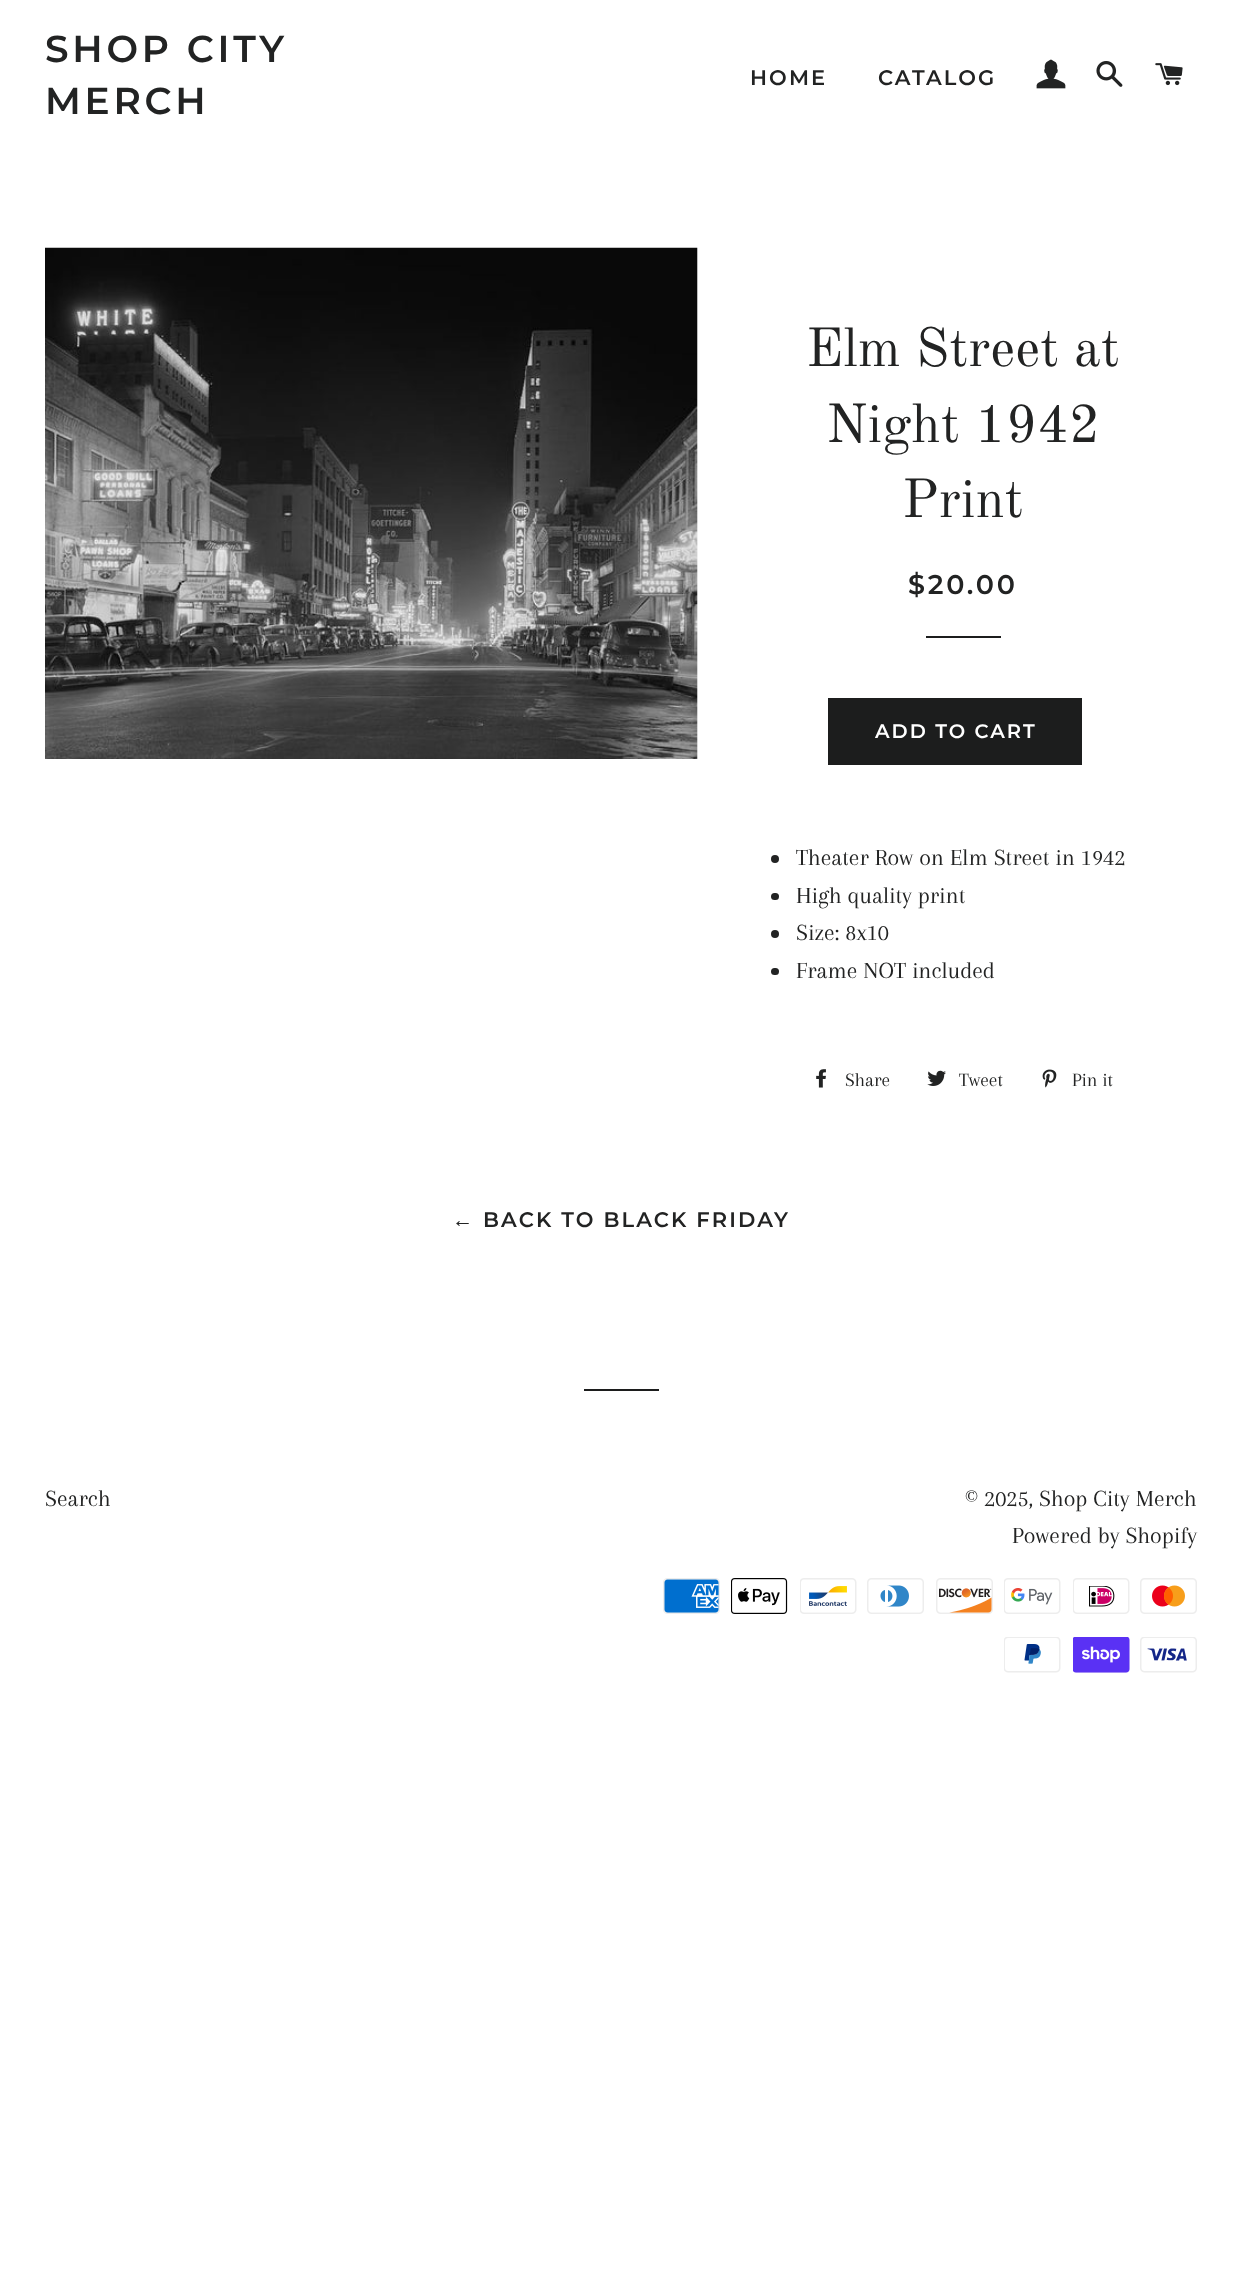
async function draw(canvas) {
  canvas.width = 1241
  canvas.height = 2290
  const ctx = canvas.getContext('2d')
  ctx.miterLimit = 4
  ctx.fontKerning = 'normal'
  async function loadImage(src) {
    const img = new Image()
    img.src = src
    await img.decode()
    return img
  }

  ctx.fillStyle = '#fff'
  ctx.fillRect(0, 0, 1241, 2290)
  ctx.letterSpacing = '3.75px'
  ctx.font = '600 37.5px Montserrat'
  ctx.fillStyle = '#222323'
  ctx.fillText('SHOP CITY', 45, 62)
  ctx.fillText('MERCH', 45, 114)
  ctx.letterSpacing = '2.1px'
  ctx.font = '600 21px Montserrat'
  ctx.fillText('HOME', 750, 85)
  ctx.fillText('CATALOG', 878, 85)
  ctx.drawImage(await loadImage('image0.png'), 1036, 59, 30, 30)
  ctx.drawImage(await loadImage('image1.png'), 1096, 61, 27, 26)
  ctx.drawImage(await loadImage('image2.png'), 1155, 63, 28, 23)
  ctx.fillStyle = '#f7f7f7'
  ctx.fillRect(697, 248, 1, 511)
  ctx.drawImage(await loadImage('image3.png'), 45, 247, 653, 512)
  ctx.letterSpacing = '0px'
  ctx.font = '54px Old Standard TT'
  ctx.fillStyle = '#222323'
  ctx.fillText('Elm Street at', 806, 366)
  ctx.fillText('Night 1942', 826, 442)
  ctx.fillText('Print', 902, 517)
  ctx.letterSpacing = '2.75px'
  ctx.font = '600 27px Montserrat'
  ctx.fillText('$20.00', 908, 594)
  ctx.fillStyle = '#1c1d1d'
  ctx.fillRect(926, 636, 75, 2)
  ctx.fillRect(828, 698, 254, 67)
  ctx.letterSpacing = '2px'
  ctx.font = '600 19.5px Montserrat'
  ctx.fillStyle = '#fff'
  ctx.fillText('ADD TO CART', 875, 738)
  ctx.fillStyle = '#222323'
  ctx.beginPath()
  ctx.arc(775, 859, 4, 0, 2 * Math.PI)
  ctx.fill()
  ctx.letterSpacing = '0px'
  ctx.font = '24px Arapey'
  ctx.fillText('Theater Row on Elm Street in 1942', 796, 865)
  ctx.beginPath()
  ctx.roundRect(771, 893, 8, 7, 3.5)
  ctx.fill()
  ctx.fillText('High quality print', 796, 903)
  ctx.beginPath()
  ctx.arc(775, 934, 4, 0, 2 * Math.PI)
  ctx.fill()
  ctx.fillText('Size: 8x10', 796, 940)
  ctx.beginPath()
  ctx.roundRect(771, 968, 8, 7, 3.5)
  ctx.fill()
  ctx.fillText('Frame NOT included', 796, 978)
  ctx.drawImage(await loadImage('image4.png'), 816, 1069, 10, 19)
  ctx.font = '19.5px Arapey'
  ctx.fillText('Share', 845, 1086)
  ctx.drawImage(await loadImage('image5.png'), 927, 1070, 19, 16)
  ctx.fillText('Tweet', 959, 1086)
  ctx.drawImage(await loadImage('image6.png'), 1042, 1069, 15, 19)
  ctx.fillText('Pin it', 1072, 1086)
  ctx.letterSpacing = '2.1px'
  ctx.font = 'bold 21px Liberation Sans'
  ctx.fillText('←', 452, 1227)
  ctx.font = '600 21px Montserrat'
  ctx.fillText('BACK TO BLACK FRIDAY', 483, 1227)
  ctx.fillStyle = '#1c1d1d'
  ctx.fillRect(584, 1389, 75, 2)
  ctx.letterSpacing = '0px'
  ctx.font = '24px Arapey'
  ctx.fillStyle = '#222323'
  ctx.fillText('Search', 45, 1506)
  ctx.fillText('© 2025, Shop City Merch', 965, 1506)
  ctx.fillText('Powered by Shopify', 1012, 1543)
  ctx.drawImage(await loadImage('image7.png'), 663, 1578, 57, 36)
  ctx.drawImage(await loadImage('image8.png'), 731, 1578, 57, 36)
  ctx.drawImage(await loadImage('image9.png'), 800, 1578, 57, 36)
  ctx.drawImage(await loadImage('image10.png'), 867, 1578, 57, 36)
  ctx.drawImage(await loadImage('image11.png'), 936, 1578, 57, 36)
  ctx.drawImage(await loadImage('image12.png'), 1004, 1578, 57, 36)
  ctx.drawImage(await loadImage('image13.png'), 1073, 1578, 57, 36)
  ctx.drawImage(await loadImage('image14.png'), 1140, 1578, 57, 36)
  ctx.drawImage(await loadImage('image15.png'), 1004, 1637, 57, 36)
  ctx.drawImage(await loadImage('image16.png'), 1073, 1637, 57, 36)
  ctx.drawImage(await loadImage('image17.png'), 1140, 1637, 57, 36)
}

draw(document.querySelector('canvas'))
